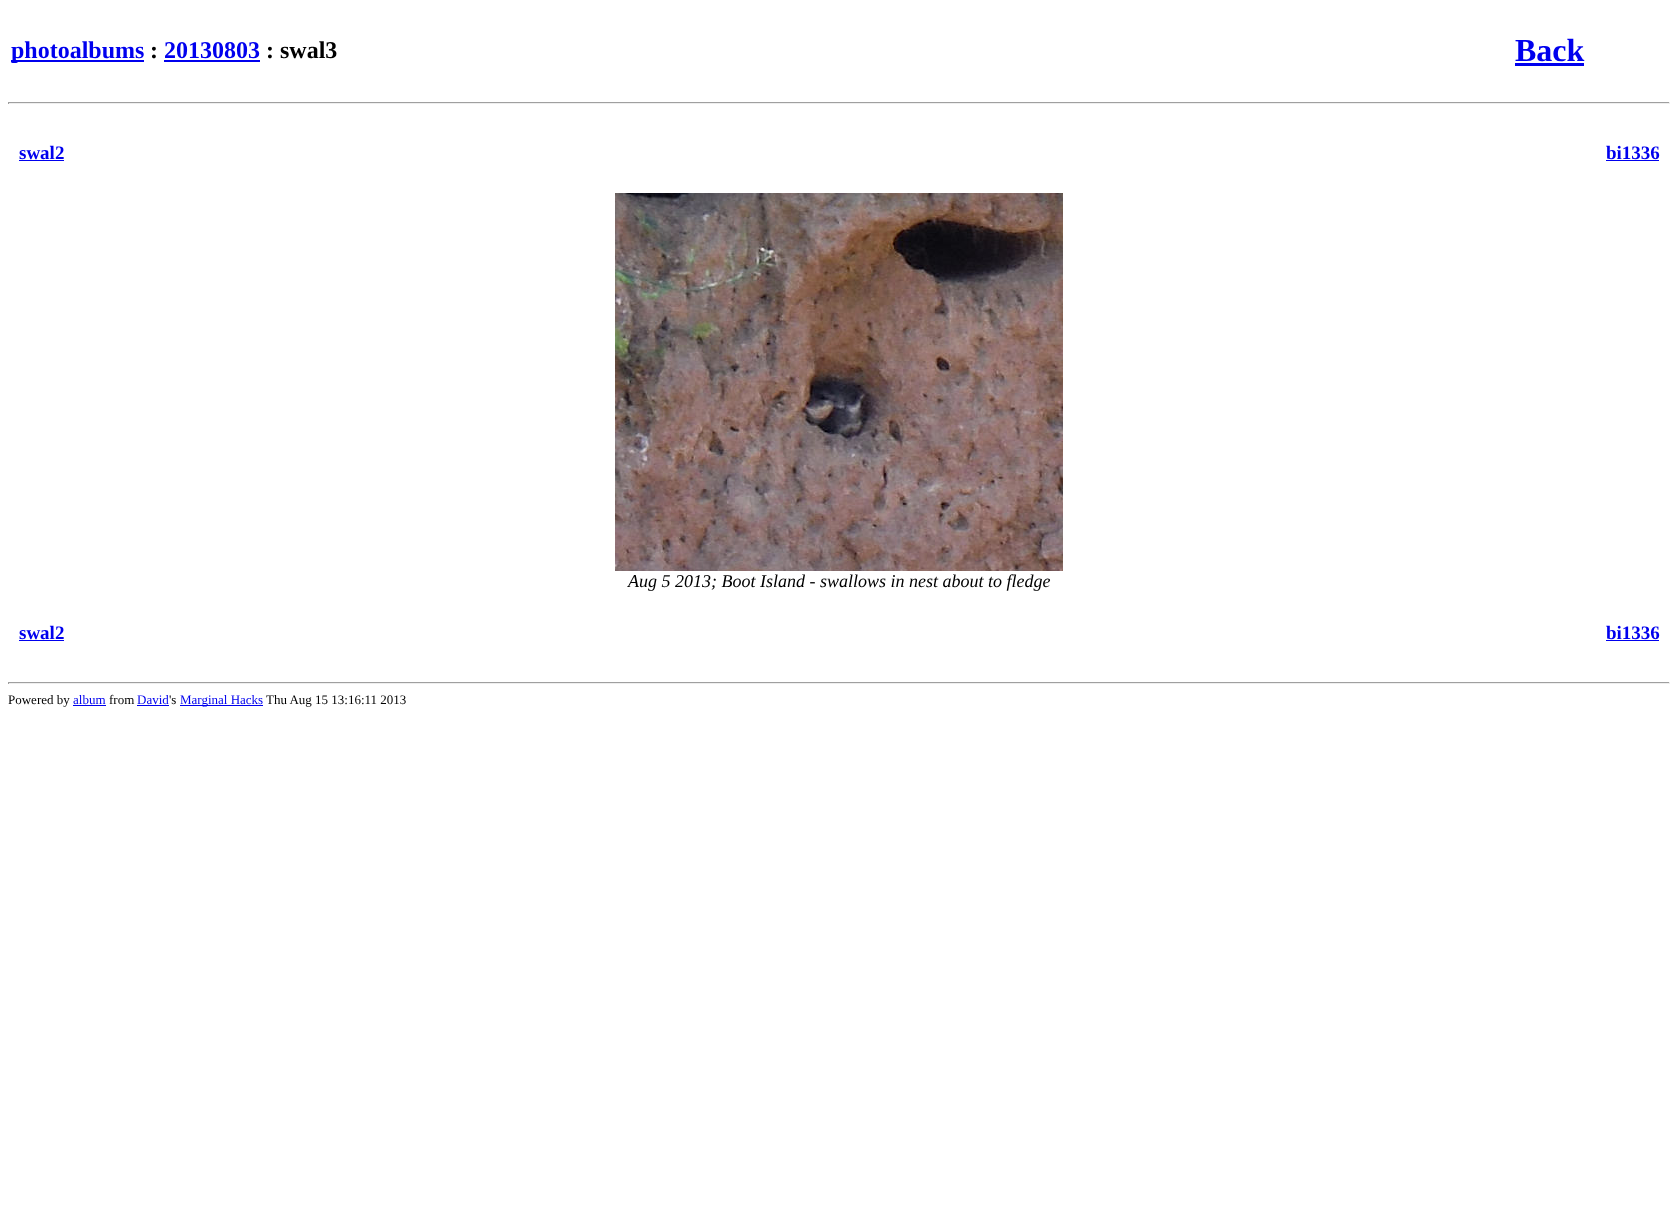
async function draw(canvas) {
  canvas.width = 1678
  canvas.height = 1221
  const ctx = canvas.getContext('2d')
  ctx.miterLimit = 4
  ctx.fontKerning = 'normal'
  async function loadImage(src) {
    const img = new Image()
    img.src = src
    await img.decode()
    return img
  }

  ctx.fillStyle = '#fff'
  ctx.fillRect(0, 0, 1678, 1221)
  ctx.fillStyle = '#00e'
  ctx.fillRect(11, 60, 133, 2)
  ctx.font = 'bold 24px Liberation Serif'
  ctx.fillText('photoalbums', 11, 58)
  ctx.fillStyle = '#000'
  ctx.fillText(':', 150, 58)
  ctx.fillStyle = '#00e'
  ctx.fillText('20130803', 164, 58)
  ctx.fillRect(164, 60, 96, 2)
  ctx.fillStyle = '#000'
  ctx.fillText(': swal3', 266, 58)
  ctx.font = 'bold 32px Liberation Serif'
  ctx.fillStyle = '#00e'
  ctx.fillText('Back', 1515, 61)
  ctx.fillRect(1515, 63, 69, 3)
  ctx.fillStyle = '#9f9f9f'
  ctx.fillRect(8, 102, 1662, 1)
  ctx.fillStyle = '#eee'
  ctx.fillRect(1669, 102, 1, 2)
  ctx.fillRect(8, 103, 1662, 1)
  ctx.fillStyle = '#9f9f9f'
  ctx.fillRect(8, 102, 1, 2)
  ctx.font = 'bold 19px Liberation Serif'
  ctx.fillStyle = '#00e'
  ctx.fillText('swal2', 19, 159)
  ctx.fillRect(19, 160, 45, 1)
  ctx.fillText('bi1336', 1606, 159)
  ctx.fillRect(1606, 160, 53, 1)
  ctx.drawImage(await loadImage('image0.png'), 615, 193, 448, 378)
  ctx.font = 'italic 18px Liberation Serif'
  ctx.fillStyle = '#000'
  ctx.fillText('Aug 5 2013; Boot Island - swallows in nest about to fledge', 628, 587)
  ctx.font = 'bold 19px Liberation Serif'
  ctx.fillStyle = '#00e'
  ctx.fillText('swal2', 19, 639)
  ctx.fillRect(19, 640, 45, 1)
  ctx.fillText('bi1336', 1606, 639)
  ctx.fillRect(1606, 640, 53, 1)
  ctx.fillStyle = '#9f9f9f'
  ctx.fillRect(8, 682, 1662, 1)
  ctx.fillStyle = '#eee'
  ctx.fillRect(1669, 682, 1, 2)
  ctx.fillRect(8, 683, 1662, 1)
  ctx.fillStyle = '#9f9f9f'
  ctx.fillRect(8, 682, 1, 2)
  ctx.font = '13px Liberation Serif'
  ctx.fillStyle = '#000'
  ctx.fillText('Powered by', 8, 704)
  ctx.fillStyle = '#00e'
  ctx.fillText('album', 73, 704)
  ctx.fillRect(73, 705, 33, 1)
  ctx.fillStyle = '#000'
  ctx.fillText('from', 109, 704)
  ctx.fillStyle = '#00e'
  ctx.fillText('David', 137, 704)
  ctx.fillRect(137, 705, 32, 1)
  ctx.fillStyle = '#000'
  ctx.fillText('\'s', 169, 704)
  ctx.fillStyle = '#00e'
  ctx.fillRect(180, 705, 83, 1)
  ctx.fillText('Marginal Hacks', 180, 704)
  ctx.fillStyle = '#000'
  ctx.fillText('Thu Aug 15 13:16:11 2013', 266, 704)
}

draw(document.querySelector('canvas'))
